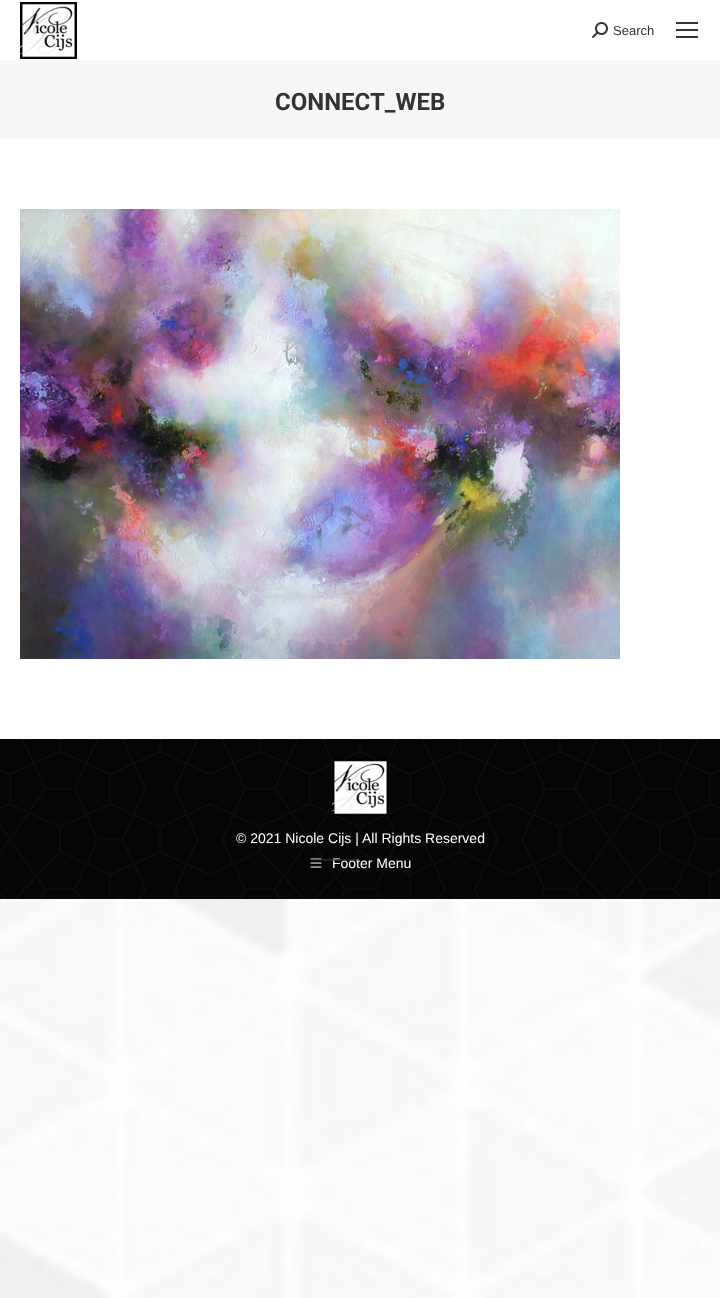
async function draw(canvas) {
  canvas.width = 720
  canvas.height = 1298
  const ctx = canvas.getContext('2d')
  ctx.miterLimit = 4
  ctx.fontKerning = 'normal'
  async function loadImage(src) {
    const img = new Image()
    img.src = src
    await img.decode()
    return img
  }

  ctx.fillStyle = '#fff'
  ctx.fillRect(0, 0, 720, 1298)
  ctx.drawImage(await loadImage('image0.png'), 0, 899, 720, 399)
  ctx.drawImage(await loadImage('image1.png'), 20, 2, 57, 57)
  ctx.drawImage(await loadImage('image2.png'), 592, 22, 16, 16)
  ctx.font = '13px Liberation Sans'
  ctx.fillStyle = '#333'
  ctx.fillText('Search', 613, 35)
  ctx.fillRect(676, 22, 22, 2)
  ctx.fillRect(676, 29, 22, 2)
  ctx.fillRect(676, 36, 22, 2)
  ctx.fillStyle = '#f7f7f7'
  ctx.fillRect(0, 60, 720, 79)
  ctx.font = 'bold 24px Roboto'
  ctx.fillStyle = '#333'
  ctx.fillText('CONNECT_WEB', 275, 110)
  ctx.drawImage(await loadImage('image3.png'), 20, 209, 600, 450)
  ctx.fillStyle = '#000'
  ctx.fillRect(0, 739, 720, 160)
  ctx.drawImage(await loadImage('image4.png'), 0, 739, 720, 160)
  ctx.drawImage(await loadImage('image1.png'), 332, 759, 57, 57)
  ctx.font = '14px Liberation Sans'
  ctx.fillStyle = '#fff'
  ctx.fillText('© 2021 Nicole Cijs | All Rights Reserved', 236, 843)
  ctx.drawImage(await loadImage('image5.png'), 310, 858, 12, 10)
  ctx.fillText('Footer Menu', 332, 868)
  ctx.font = '16px Liberation Sans'
  ctx.fillStyle = '#333'
  ctx.fillText('———', 311, 864)
}

draw(document.querySelector('canvas'))
